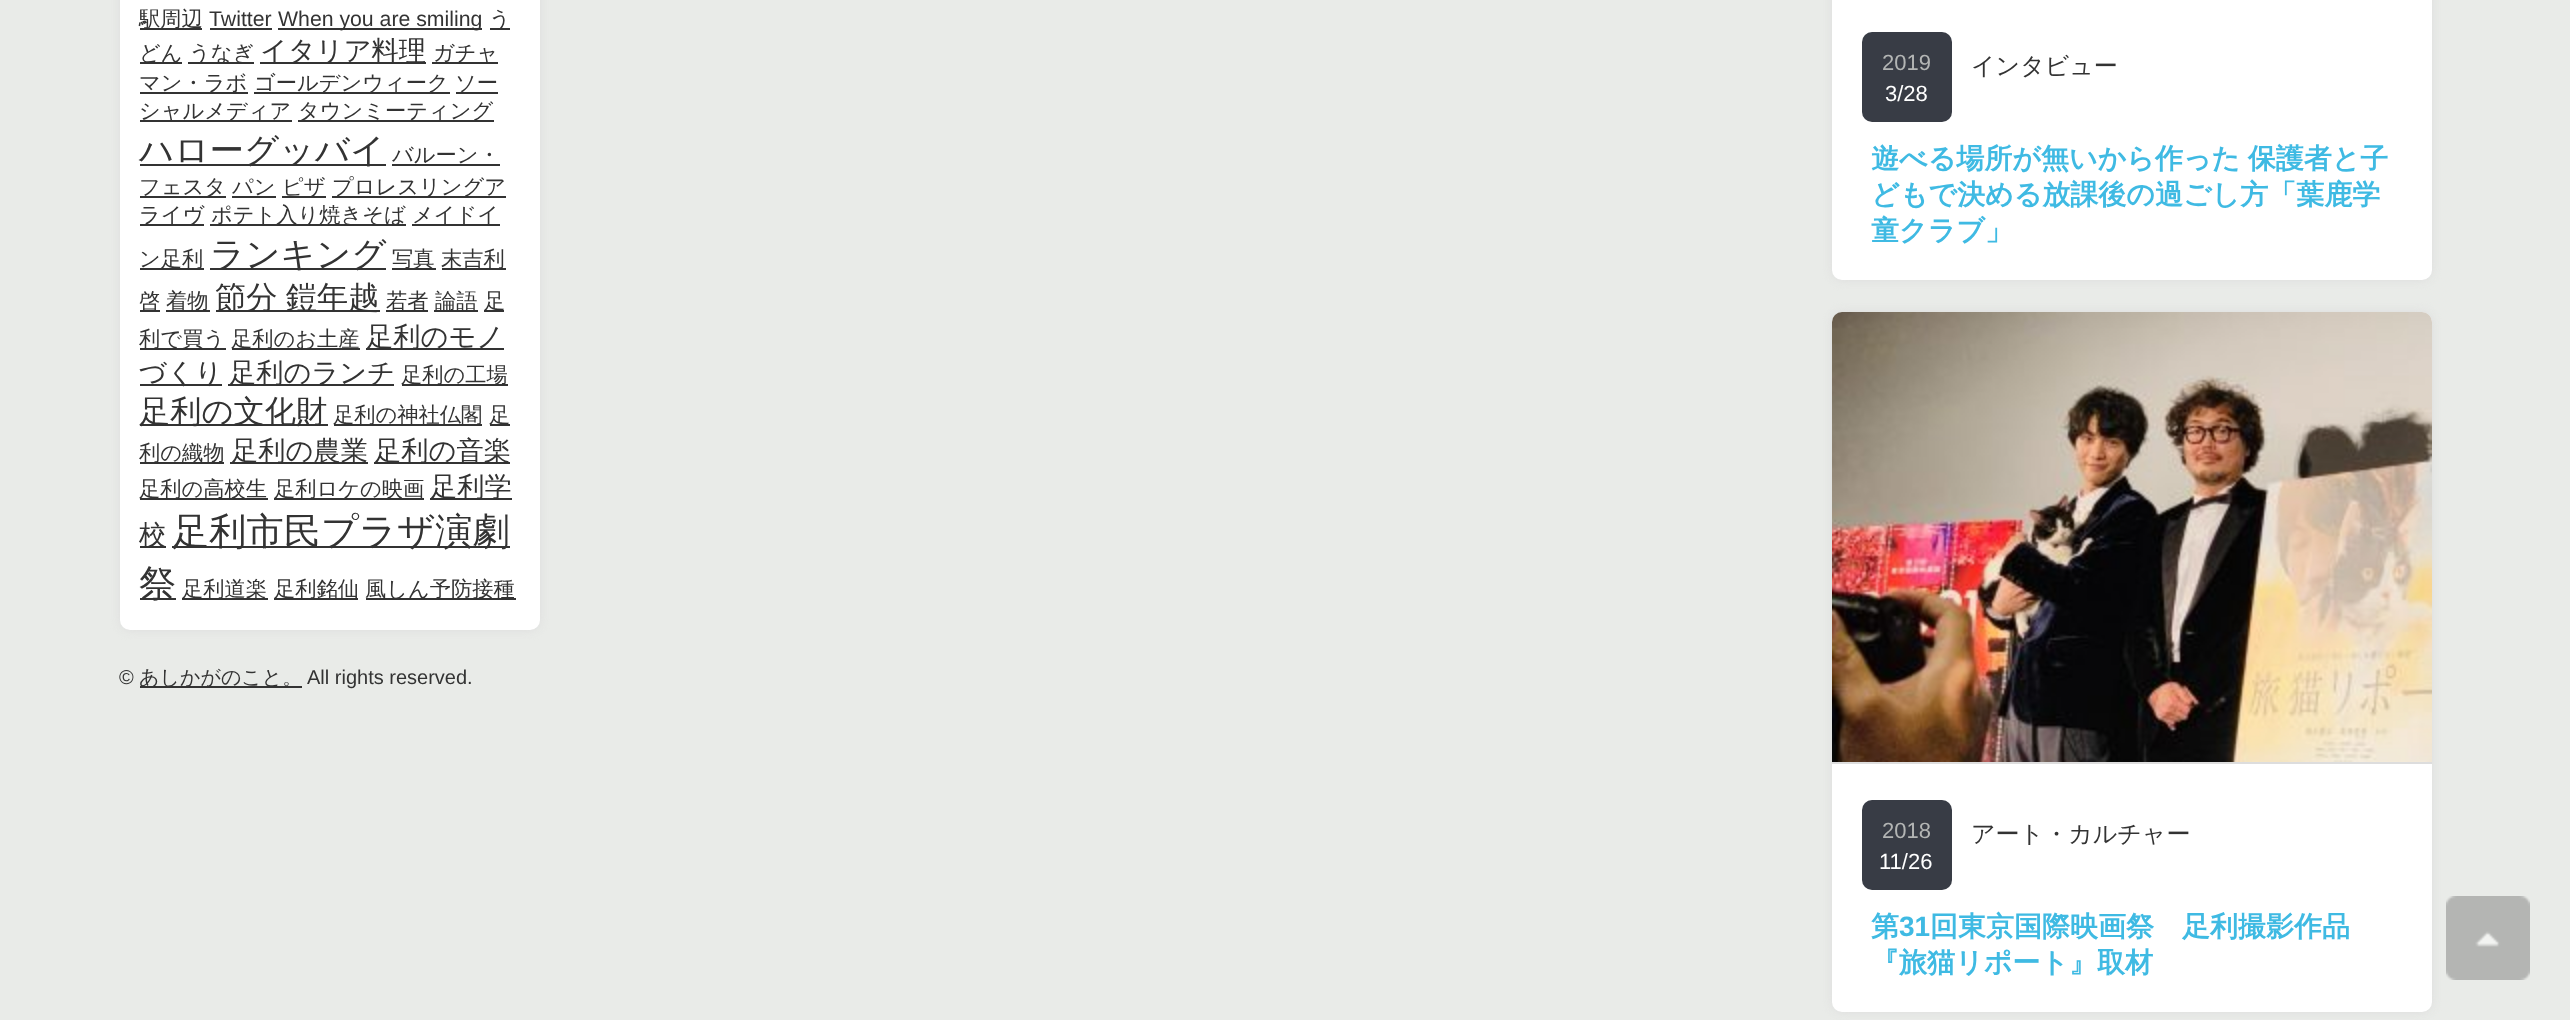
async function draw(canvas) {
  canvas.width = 2570
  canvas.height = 1020
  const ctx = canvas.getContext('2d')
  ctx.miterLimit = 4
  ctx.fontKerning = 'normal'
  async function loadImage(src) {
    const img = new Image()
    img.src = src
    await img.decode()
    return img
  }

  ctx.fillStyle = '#e9ebe8'
  ctx.fillRect(0, 0, 2570, 1020)
  ctx.fillStyle = '#ddd'
  ctx.filter = 'blur(5px)'
  ctx.beginPath()
  ctx.roundRect(120, -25, 420, 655, 10)
  ctx.fill()
  ctx.filter = 'none'
  ctx.fillStyle = '#fff'
  ctx.beginPath()
  ctx.roundRect(120, -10, 420, 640, 10)
  ctx.fill()
  ctx.fillStyle = '#333'
  ctx.fillRect(140, 28, 62, 2)
  ctx.font = '500 21.25px WenQuanYi Zen Hei'
  ctx.fillText('駅周辺', 139, 26)
  ctx.font = '21.25px Liberation Sans'
  ctx.fillText('Twitter', 209, 26)
  ctx.fillRect(210, 28, 62, 2)
  ctx.fillRect(278, 28, 204, 2)
  ctx.fillText('When you are smiling', 278, 26)
  ctx.fillRect(490, 28, 20, 2)
  ctx.font = '500 21.25px WenQuanYi Zen Hei'
  ctx.fillText('う', 489, 26)
  ctx.fillRect(140, 62, 42, 2)
  ctx.fillText('どん', 139, 60)
  ctx.fillRect(188, 62, 66, 2)
  ctx.fillText('うなぎ', 189, 60)
  ctx.fillRect(260, 62, 166, 2)
  ctx.font = '500 27.25px WenQuanYi Zen Hei'
  ctx.fillText('イタリア料理', 260, 60)
  ctx.fillRect(432, 62, 66, 2)
  ctx.font = '500 21.25px WenQuanYi Zen Hei'
  ctx.fillText('ガチャ', 433, 60)
  ctx.fillRect(140, 92, 108, 2)
  ctx.fillText('マン・ラボ', 139, 90)
  ctx.fillRect(254, 92, 196, 2)
  ctx.fillText('ゴールデンウィーク', 254, 90)
  ctx.fillRect(456, 92, 42, 2)
  ctx.fillText('ソー', 455, 90)
  ctx.fillRect(140, 120, 152, 2)
  ctx.fillText('シャルメディア', 139, 118)
  ctx.fillRect(298, 120, 196, 2)
  ctx.fillText('タウンミーティング', 298, 118)
  ctx.fillRect(140, 164, 246, 2)
  ctx.font = '500 34.5px WenQuanYi Zen Hei'
  ctx.fillText('ハローグッバイ', 139, 162)
  ctx.font = '500 21.25px WenQuanYi Zen Hei'
  ctx.fillText('バルーン・', 392, 162)
  ctx.fillRect(392, 164, 108, 2)
  ctx.fillRect(140, 196, 86, 2)
  ctx.fillText('フェスタ', 139, 194)
  ctx.fillText('パン', 232, 194)
  ctx.fillRect(232, 196, 44, 2)
  ctx.fillRect(282, 196, 44, 2)
  ctx.fillText('ピザ', 282, 194)
  ctx.fillRect(332, 196, 174, 2)
  ctx.fillText('プロレスリングア', 332, 194)
  ctx.fillRect(140, 224, 64, 2)
  ctx.fillText('ライヴ', 139, 222)
  ctx.fillRect(210, 224, 196, 2)
  ctx.fillText('ポテト入り焼きそば', 211, 222)
  ctx.fillRect(412, 224, 88, 2)
  ctx.fillText('メイドイ', 412, 222)
  ctx.fillRect(140, 268, 64, 2)
  ctx.fillText('ン足利', 139, 266)
  ctx.fillRect(210, 268, 176, 2)
  ctx.font = '500 34.5px WenQuanYi Zen Hei'
  ctx.fillText('ランキング', 210, 266)
  ctx.fillRect(392, 268, 44, 2)
  ctx.font = '500 21.25px WenQuanYi Zen Hei'
  ctx.fillText('写真', 392, 266)
  ctx.fillRect(442, 268, 64, 2)
  ctx.fillText('末吉利', 441, 266)
  ctx.fillRect(140, 310, 20, 2)
  ctx.fillText('啓', 139, 308)
  ctx.fillRect(166, 310, 44, 2)
  ctx.fillText('着物', 166, 308)
  ctx.fillRect(216, 310, 164, 2)
  ctx.wordSpacing = '-1px'
  ctx.font = '500 31.25px WenQuanYi Zen Hei'
  ctx.fillText('節分 鎧年越', 215, 308)
  ctx.fillRect(386, 310, 42, 2)
  ctx.wordSpacing = '0px'
  ctx.font = '500 21.25px WenQuanYi Zen Hei'
  ctx.fillText('若者', 386, 308)
  ctx.fillRect(434, 310, 44, 2)
  ctx.fillText('論語', 435, 308)
  ctx.fillRect(484, 310, 20, 2)
  ctx.fillText('足', 484, 308)
  ctx.fillRect(140, 348, 86, 2)
  ctx.fillText('利で買う', 139, 346)
  ctx.fillRect(232, 348, 128, 2)
  ctx.fillText('足利のお土産', 231, 346)
  ctx.fillRect(366, 348, 138, 2)
  ctx.font = '500 27.25px WenQuanYi Zen Hei'
  ctx.fillText('足利のモノ', 366, 346)
  ctx.fillRect(140, 384, 82, 2)
  ctx.fillText('づくり', 139, 382)
  ctx.fillRect(228, 384, 166, 2)
  ctx.fillText('足利のランチ', 229, 382)
  ctx.fillRect(402, 384, 106, 2)
  ctx.font = '500 21.25px WenQuanYi Zen Hei'
  ctx.fillText('足利の工場', 401, 382)
  ctx.fillRect(140, 424, 188, 2)
  ctx.font = '500 31.25px WenQuanYi Zen Hei'
  ctx.fillText('足利の文化財', 139, 422)
  ctx.fillRect(334, 424, 148, 2)
  ctx.font = '500 21.25px WenQuanYi Zen Hei'
  ctx.fillText('足利の神社仏閣', 333, 422)
  ctx.fillRect(490, 424, 20, 2)
  ctx.fillText('足', 489, 422)
  ctx.fillRect(140, 462, 84, 2)
  ctx.fillText('利の織物', 139, 460)
  ctx.fillRect(230, 462, 138, 2)
  ctx.font = '500 27.25px WenQuanYi Zen Hei'
  ctx.fillText('足利の農業', 231, 460)
  ctx.fillRect(374, 462, 136, 2)
  ctx.fillText('足利の音楽', 374, 460)
  ctx.fillRect(140, 498, 128, 2)
  ctx.font = '500 21.25px WenQuanYi Zen Hei'
  ctx.fillText('足利の高校生', 139, 496)
  ctx.fillRect(274, 498, 150, 2)
  ctx.fillText('足利ロケの映画', 274, 496)
  ctx.fillRect(430, 498, 82, 2)
  ctx.font = '500 27.25px WenQuanYi Zen Hei'
  ctx.fillText('足利学', 430, 496)
  ctx.fillRect(140, 546, 26, 2)
  ctx.fillText('校', 139, 544)
  ctx.fillRect(172, 546, 338, 2)
  ctx.font = '500 37.25px WenQuanYi Zen Hei'
  ctx.fillText('足利市民プラザ演劇', 172, 544)
  ctx.fillRect(140, 598, 36, 2)
  ctx.fillText('祭', 139, 596)
  ctx.fillRect(182, 598, 86, 2)
  ctx.font = '500 21.25px WenQuanYi Zen Hei'
  ctx.fillText('足利道楽', 182, 596)
  ctx.fillRect(274, 598, 84, 2)
  ctx.fillText('足利銘仙', 274, 596)
  ctx.fillRect(366, 598, 150, 2)
  ctx.fillText('風しん予防接種', 365, 596)
  ctx.font = '20px Liberation Sans'
  ctx.fillText('©', 119, 684)
  ctx.fillRect(140, 686, 162, 2)
  ctx.font = '500 20px WenQuanYi Zen Hei'
  ctx.fillText('あしかがのこと。', 139, 684)
  ctx.font = '20px Liberation Sans'
  ctx.fillText('All rights reserved.', 307, 684)
  ctx.fillStyle = '#ddd'
  ctx.filter = 'blur(5px)'
  ctx.beginPath()
  ctx.roundRect(1832, -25, 600, 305, 10)
  ctx.fill()
  ctx.filter = 'none'
  ctx.fillStyle = '#fff'
  ctx.beginPath()
  ctx.roundRect(1832, -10, 600, 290, 10)
  ctx.fill()
  ctx.fillStyle = '#383c45'
  ctx.beginPath()
  ctx.roundRect(1862, 32, 90, 90, 10)
  ctx.fill()
  ctx.font = '22px Liberation Sans'
  ctx.fillStyle = '#b3b5b4'
  ctx.fillText('2019', 1882, 70)
  ctx.fillStyle = '#fff'
  ctx.fillText('3/28', 1885, 101)
  ctx.font = '500 24px WenQuanYi Zen Hei'
  ctx.fillStyle = '#333'
  ctx.fillText('インタビュー', 1971, 74)
  ctx.wordSpacing = '-1px'
  ctx.font = 'bold 28px WenQuanYi Zen Hei'
  ctx.fillStyle = '#3fbae3'
  ctx.fillText('遊べる場所が無いから作った 保護者と子', 1871, 168)
  ctx.wordSpacing = '0px'
  ctx.fillText('どもで決める放課後の過ごし方「葉鹿学', 1871, 204)
  ctx.fillText('童クラブ」', 1871, 240)
  ctx.fillStyle = '#ddd'
  ctx.filter = 'blur(5px)'
  ctx.beginPath()
  ctx.roundRect(1832, 312, 600, 700, 10)
  ctx.fill()
  ctx.filter = 'none'
  ctx.fillStyle = '#fff'
  ctx.beginPath()
  ctx.roundRect(1832, 312, 600, 700, 10)
  ctx.fill()
  ctx.drawImage(await loadImage('image0.png'), 1832, 312, 600, 450)
  ctx.fillStyle = '#ddd'
  ctx.fillRect(1832, 762, 600, 2)
  ctx.fillStyle = '#383c45'
  ctx.beginPath()
  ctx.roundRect(1862, 800, 90, 90, 10)
  ctx.fill()
  ctx.font = '22px Liberation Sans'
  ctx.fillStyle = '#b3b5b4'
  ctx.fillText('2018', 1882, 838)
  ctx.fillStyle = '#fff'
  ctx.fillText('11/26', 1879, 869)
  ctx.font = '500 24px WenQuanYi Zen Hei'
  ctx.fillStyle = '#333'
  ctx.fillText('アート・カルチャー', 1971, 842)
  ctx.font = 'bold 28px WenQuanYi Zen Hei'
  ctx.fillStyle = '#3fbae3'
  ctx.fillText('第', 1871, 936)
  ctx.font = 'bold 28px Liberation Sans'
  ctx.fillText('31', 1899, 936)
  ctx.font = 'bold 28px WenQuanYi Zen Hei'
  ctx.fillText('回東京国際映画祭　足利撮影作品', 1930, 936)
  ctx.fillText('『旅猫リポート』取材', 1871, 972)
  ctx.drawImage(await loadImage('image1.png'), 2446, 896, 84, 84)
}

draw(document.querySelector('canvas'))
